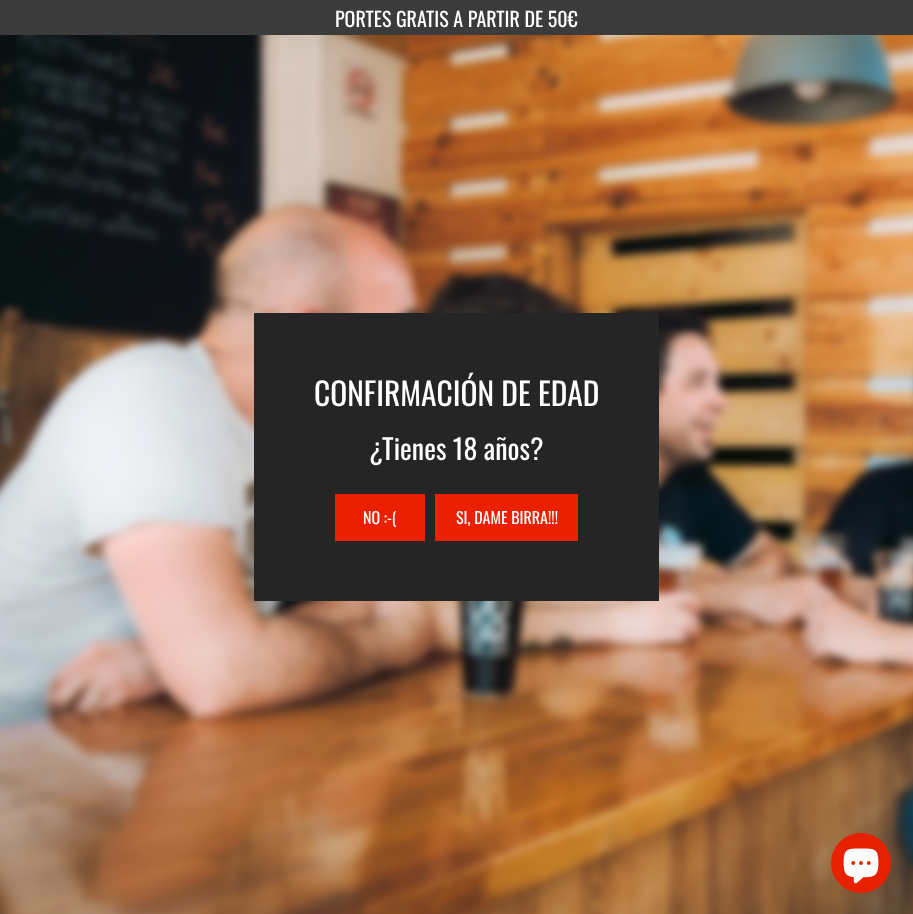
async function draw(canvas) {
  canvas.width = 913
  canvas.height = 914
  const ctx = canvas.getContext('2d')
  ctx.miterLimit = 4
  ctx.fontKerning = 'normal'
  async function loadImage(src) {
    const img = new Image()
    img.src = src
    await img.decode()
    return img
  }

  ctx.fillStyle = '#fff'
  ctx.fillRect(0, 0, 913, 914)
  ctx.fillStyle = '#3b3b3b'
  ctx.fillRect(0, 0, 913, 35)
  ctx.font = '20px Oswald'
  ctx.fillStyle = '#fff'
  ctx.fillText('PORTES GRATIS A PARTIR DE 50€', 335, 27)
  ctx.drawImage(await loadImage('image0.png'), 0, 35, 913, 879)
  ctx.fillStyle = '#252525'
  ctx.fillRect(254, 313, 405, 288)
  ctx.font = '31.5px Oswald'
  ctx.fillStyle = '#fff'
  ctx.fillText('CONFIRMACIÓN DE EDAD', 314, 406)
  ctx.font = '28px Oswald'
  ctx.fillText('¿Tienes 18 años?', 369, 460)
  ctx.fillStyle = '#ea2000'
  ctx.fillRect(335, 494, 90, 47)
  ctx.font = '16px Oswald'
  ctx.fillStyle = '#fff'
  ctx.fillText('NO :-(', 363, 524)
  ctx.fillStyle = '#ea2000'
  ctx.fillRect(435, 494, 143, 47)
  ctx.fillStyle = '#fff'
  ctx.fillText('SI, DAME BIRRA!!!', 456, 524)
  ctx.fillStyle = '#e72000'
  ctx.beginPath()
  ctx.arc(861, 863, 30, 0, 2 * Math.PI)
  ctx.fill()
  ctx.drawImage(await loadImage('image1.png'), 843, 848, 36, 36)
}

draw(document.querySelector('canvas'))
